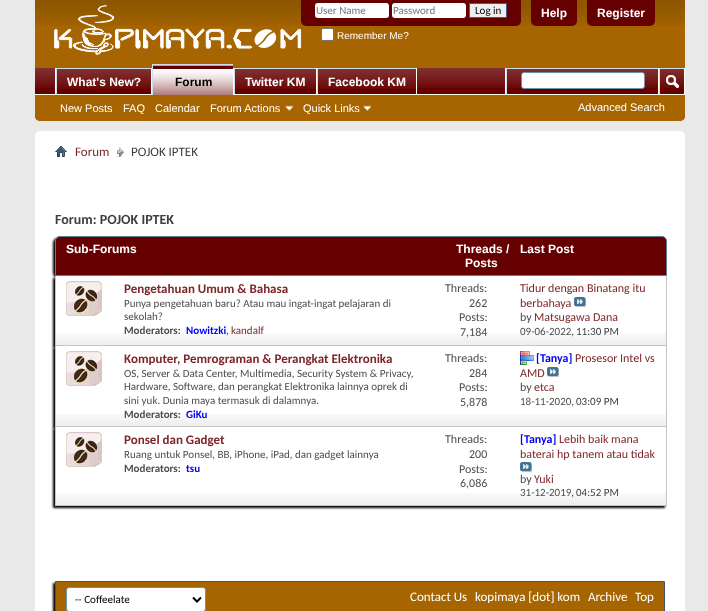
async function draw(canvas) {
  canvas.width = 708
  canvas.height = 611
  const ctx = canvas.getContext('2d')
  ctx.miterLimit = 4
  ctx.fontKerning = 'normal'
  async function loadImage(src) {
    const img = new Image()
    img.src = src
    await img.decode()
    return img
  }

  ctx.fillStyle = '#e9e9e9'
  ctx.fillRect(0, 0, 708, 611)
  ctx.fillStyle = '#a66500'
  ctx.beginPath()
  ctx.roundRect(35, 0, 650, 121, [0, 0, 5, 5])
  ctx.fill()
  ctx.drawImage(await loadImage('image0.png'), 35, 0, 650, 26)
  ctx.drawImage(await loadImage('image1.png'), 54, 5, 248, 50)
  ctx.fillStyle = '#600'
  ctx.beginPath()
  ctx.roundRect(301, 0, 220, 26, [0, 0, 5, 5])
  ctx.fill()
  ctx.fillStyle = '#fff'
  ctx.beginPath()
  ctx.roundRect(315, 3, 74, 15, 3)
  ctx.fill()
  ctx.font = '11px Carlito'
  ctx.fillStyle = '#777'
  ctx.fillText('User Name', 316, 14)
  ctx.fillStyle = '#fff'
  ctx.beginPath()
  ctx.roundRect(392, 3, 74, 15, 3)
  ctx.fill()
  ctx.fillStyle = '#777'
  ctx.fillText('Password', 393, 14)
  ctx.fillStyle = '#efefef'
  ctx.beginPath()
  ctx.rect(469.5, 3.5, 37, 14)
  ctx.fill()
  ctx.strokeStyle = '#415d8d'
  ctx.stroke()
  ctx.fillStyle = '#000'
  ctx.fillText('Log in', 475, 14)
  ctx.fillStyle = '#fff'
  ctx.beginPath()
  ctx.roundRect(321.5, 28.5, 12, 12, 1.5)
  ctx.fill()
  ctx.strokeStyle = '#767676'
  ctx.stroke()
  ctx.font = '10px Liberation Sans'
  ctx.fillText('Remember Me?', 337, 39)
  ctx.fillStyle = '#600'
  ctx.beginPath()
  ctx.roundRect(531, 0, 46, 26, [0, 0, 5, 5])
  ctx.fill()
  ctx.font = 'bold 12px Liberation Sans'
  ctx.fillStyle = '#fff'
  ctx.fillText('Help', 541, 17)
  ctx.fillStyle = '#600'
  ctx.beginPath()
  ctx.roundRect(587, 0, 68, 26, [0, 0, 5, 5])
  ctx.fill()
  ctx.fillStyle = '#fff'
  ctx.fillText('Register', 597, 17)
  ctx.fillStyle = '#a66500'
  ctx.beginPath()
  ctx.roundRect(35, 68, 650, 53, [0, 0, 5, 5])
  ctx.fill()
  ctx.fillStyle = '#600'
  ctx.fillRect(35, 68, 649, 26)
  ctx.drawImage(await loadImage('image2.png'), 35, 68, 649, 20)
  ctx.fillStyle = '#ffffeb'
  ctx.fillRect(151, 68, 1, 27)
  ctx.fillRect(55, 68, 1, 27)
  ctx.fillStyle = '#600'
  ctx.fillRect(57, 69, 94, 19)
  ctx.drawImage(await loadImage('image3.png'), 57, 69, 94, 20)
  ctx.fillStyle = '#cedfeb'
  ctx.fillRect(56, 68, 95, 1)
  ctx.fillRect(56, 68, 1, 27)
  ctx.fillStyle = '#fff'
  ctx.fillText('What\'s New?', 67, 86)
  ctx.fillStyle = '#ffffeb'
  ctx.fillRect(233, 68, 1, 26)
  ctx.fillRect(316, 68, 1, 27)
  ctx.fillStyle = '#cedfeb'
  ctx.fillRect(234, 68, 82, 1)
  ctx.fillRect(234, 68, 1, 27)
  ctx.fillStyle = '#ffffeb'
  ctx.fillRect(416, 68, 1, 27)
  ctx.fillStyle = '#cedfeb'
  ctx.fillRect(317, 68, 99, 1)
  ctx.fillRect(317, 68, 1, 27)
  ctx.fillStyle = '#ffffeb'
  ctx.fillRect(35, 94, 650, 1)
  ctx.fillStyle = '#600'
  ctx.fillRect(153, 65, 80, 30)
  ctx.drawImage(await loadImage('image4.png'), 153, 65, 80, 30)
  ctx.fillStyle = '#cedfeb'
  ctx.fillRect(152, 64, 81, 1)
  ctx.fillRect(152, 64, 1, 31)
  ctx.fillStyle = '#000'
  ctx.fillText('Forum', 175, 86)
  ctx.fillStyle = '#600'
  ctx.fillRect(235, 69, 81, 19)
  ctx.drawImage(await loadImage('image5.png'), 235, 69, 81, 20)
  ctx.fillStyle = '#fff'
  ctx.fillText('Twitter KM', 245, 86)
  ctx.fillStyle = '#600'
  ctx.fillRect(318, 69, 98, 19)
  ctx.drawImage(await loadImage('image6.png'), 318, 69, 98, 20)
  ctx.fillStyle = '#fff'
  ctx.fillText('Facebook KM', 328, 86)
  ctx.font = '11px Liberation Sans'
  ctx.fillText('New Posts', 60, 112)
  ctx.fillText('FAQ', 123, 112)
  ctx.fillText('Calendar', 155, 112)
  ctx.fillText('Forum Actions', 210, 112)
  ctx.drawImage(await loadImage('image7.png'), 285, 105, 9, 6)
  ctx.fillText('Quick Links', 303, 112)
  ctx.drawImage(await loadImage('image7.png'), 363, 105, 9, 6)
  ctx.fillStyle = '#ffffeb'
  ctx.fillRect(505, 68, 1, 26)
  ctx.fillStyle = '#cedfeb'
  ctx.fillRect(506, 68, 152, 1)
  ctx.fillRect(506, 68, 1, 26)
  ctx.fillStyle = '#fff'
  ctx.beginPath()
  ctx.roundRect(521.5, 72.5, 123, 16, 2.5)
  ctx.fill()
  ctx.strokeStyle = '#6b91ab'
  ctx.stroke()
  ctx.fillStyle = '#ffffeb'
  ctx.fillRect(684, 68, 1, 26)
  ctx.fillRect(658, 68, 1, 26)
  ctx.fillStyle = '#cedfeb'
  ctx.fillRect(659, 68, 25, 1)
  ctx.fillRect(659, 68, 1, 26)
  ctx.drawImage(await loadImage('image8.png'), 666, 75, 13, 14)
  ctx.fillStyle = '#fff'
  ctx.fillText('Advanced Search', 578, 111)
  ctx.beginPath()
  ctx.roundRect(35, 131, 650, 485, 5)
  ctx.fill()
  ctx.drawImage(await loadImage('image9.png'), 55, 146, 12, 11)
  ctx.drawImage(await loadImage('image10.png'), 117, 147, 7, 10)
  ctx.font = '13px Carlito'
  ctx.fillStyle = '#7e272a'
  ctx.fillText('Forum', 75, 156)
  ctx.fillStyle = '#3e3e3e'
  ctx.fillText('POJOK IPTEK', 131, 156)
  ctx.font = 'bold 14px Carlito'
  ctx.fillText('Forum: POJOK IPTEK', 55, 224)
  ctx.fillStyle = '#000'
  ctx.filter = 'blur(1px)'
  ctx.beginPath()
  ctx.roundRect(53, 238, 612, 40, 5)
  ctx.fill()
  ctx.filter = 'none'
  ctx.fillStyle = '#600'
  ctx.beginPath()
  ctx.roundRect(55.5, 236.5, 611, 39, [4.5, 4.5, 0, 0])
  ctx.fill()
  ctx.strokeStyle = '#5a7f97'
  ctx.stroke()
  ctx.font = 'bold 12px Liberation Sans'
  ctx.fillStyle = '#fff'
  ctx.fillText('Sub-Forums', 66, 253)
  ctx.fillText('Threads /', 456, 253)
  ctx.fillText('Posts', 465, 267)
  ctx.fillText('Last Post', 520, 253)
  ctx.fillStyle = '#000'
  ctx.filter = 'blur(1px)'
  ctx.beginPath()
  ctx.rect(53, 278, 612, 70)
  ctx.fill()
  ctx.filter = 'none'
  ctx.fillStyle = '#fff'
  ctx.fillRect(56, 276, 610, 69)
  ctx.drawImage(await loadImage('image11.png'), 56, 333, 610, 12)
  ctx.fillStyle = '#c4c4c4'
  ctx.fillRect(666, 276, 1, 70)
  ctx.fillRect(55, 345, 612, 1)
  ctx.fillRect(55, 276, 1, 70)
  ctx.drawImage(await loadImage('image12.png'), 66, 281, 36, 35)
  ctx.font = 'bold 13px Carlito'
  ctx.fillStyle = '#7e272a'
  ctx.fillText('Pengetahuan Umum & Bahasa', 124, 293)
  ctx.font = '11px Carlito'
  ctx.fillStyle = '#4e4e4e'
  ctx.fillText('Punya pengetahuan baru? Atau mau ingat-ingat pelajaran di', 124, 307)
  ctx.fillText('sekolah?', 124, 320)
  ctx.font = 'bold 11px Carlito'
  ctx.fillText('Moderators:', 124, 334)
  ctx.fillStyle = '#00f'
  ctx.fillText('Nowitzki', 186, 334)
  ctx.font = '11px Carlito'
  ctx.fillStyle = '#4e4e4e'
  ctx.fillText(',', 226, 334)
  ctx.fillStyle = '#7e272a'
  ctx.fillText('kandalf', 231, 334)
  ctx.font = '12px Carlito'
  ctx.fillStyle = '#4e4e4e'
  ctx.fillText('Threads:', 445, 292)
  ctx.fillText('262', 469, 307)
  ctx.fillText('Posts:', 459, 321)
  ctx.fillText('7,184', 460, 336)
  ctx.fillStyle = '#7e272a'
  ctx.fillText('Tidur dengan Binatang itu', 520, 292)
  ctx.fillText('berbahaya', 520, 307)
  ctx.drawImage(await loadImage('image13.png'), 574, 297, 12, 10)
  ctx.fillStyle = '#4e4e4e'
  ctx.fillText('by', 520, 321)
  ctx.fillStyle = '#7e272a'
  ctx.fillText('Matsugawa Dana', 534, 321)
  ctx.font = '11px Carlito'
  ctx.fillStyle = '#4e4e4e'
  ctx.fillText('09-06-2022,', 520, 335)
  ctx.fillStyle = '#3e3e3e'
  ctx.fillText('11:30 PM', 576, 335)
  ctx.fillStyle = '#000'
  ctx.filter = 'blur(1px)'
  ctx.beginPath()
  ctx.rect(53, 348, 612, 81)
  ctx.fill()
  ctx.filter = 'none'
  ctx.fillStyle = '#fff'
  ctx.fillRect(56, 346, 610, 80)
  ctx.drawImage(await loadImage('image11.png'), 56, 414, 610, 12)
  ctx.fillStyle = '#c4c4c4'
  ctx.fillRect(666, 346, 1, 81)
  ctx.fillRect(55, 426, 612, 1)
  ctx.fillRect(55, 346, 1, 81)
  ctx.drawImage(await loadImage('image12.png'), 66, 351, 36, 35)
  ctx.font = 'bold 13px Carlito'
  ctx.fillStyle = '#7e272a'
  ctx.fillText('Komputer, Pemrograman & Perangkat Elektronika', 124, 363)
  ctx.font = '11px Carlito'
  ctx.fillStyle = '#4e4e4e'
  ctx.fillText('OS, Server & Data Center, Multimedia, Security System & Privacy,', 124, 377)
  ctx.fillText('Hardware, Software, dan perangkat Elektronika lainnya oprek di', 124, 390)
  ctx.fillText('sini yuk. Dunia maya termasuk di dalamnya.', 124, 404)
  ctx.font = 'bold 11px Carlito'
  ctx.fillText('Moderators:', 124, 418)
  ctx.fillStyle = '#00f'
  ctx.fillText('GiKu', 186, 418)
  ctx.font = '12px Carlito'
  ctx.fillStyle = '#4e4e4e'
  ctx.fillText('Threads:', 445, 362)
  ctx.fillText('284', 469, 377)
  ctx.fillText('Posts:', 459, 391)
  ctx.fillText('5,878', 460, 406)
  ctx.drawImage(await loadImage('image14.png'), 520, 351, 14, 14)
  ctx.font = 'bold 12px Carlito'
  ctx.fillStyle = '#00f'
  ctx.fillText('[Tanya]', 536, 362)
  ctx.font = '12px Carlito'
  ctx.fillStyle = '#7e272a'
  ctx.fillText('Prosesor Intel vs', 575, 362)
  ctx.fillText('AMD', 520, 377)
  ctx.drawImage(await loadImage('image13.png'), 547, 367, 12, 10)
  ctx.fillStyle = '#4e4e4e'
  ctx.fillText('by', 520, 391)
  ctx.fillStyle = '#7e272a'
  ctx.fillText('etca', 534, 391)
  ctx.font = '11px Carlito'
  ctx.fillStyle = '#4e4e4e'
  ctx.fillText('18-11-2020,', 520, 405)
  ctx.fillStyle = '#3e3e3e'
  ctx.fillText('03:09 PM', 576, 405)
  ctx.fillStyle = '#000'
  ctx.filter = 'blur(1px)'
  ctx.beginPath()
  ctx.rect(53, 429, 612, 79)
  ctx.fill()
  ctx.filter = 'none'
  ctx.fillStyle = '#fff'
  ctx.fillRect(56, 427, 610, 78)
  ctx.drawImage(await loadImage('image11.png'), 56, 493, 610, 12)
  ctx.fillStyle = '#c4c4c4'
  ctx.fillRect(666, 427, 1, 79)
  ctx.fillRect(55, 505, 612, 1)
  ctx.fillRect(55, 427, 1, 79)
  ctx.drawImage(await loadImage('image12.png'), 66, 432, 36, 35)
  ctx.font = 'bold 13px Carlito'
  ctx.fillStyle = '#7e272a'
  ctx.fillText('Ponsel dan Gadget', 124, 444)
  ctx.font = '11px Carlito'
  ctx.fillStyle = '#4e4e4e'
  ctx.fillText('Ruang untuk Ponsel, BB, iPhone, iPad, dan gadget lainnya', 124, 458)
  ctx.font = 'bold 11px Carlito'
  ctx.fillText('Moderators:', 124, 472)
  ctx.fillStyle = '#00f'
  ctx.fillText('tsu', 186, 472)
  ctx.font = '12px Carlito'
  ctx.fillStyle = '#4e4e4e'
  ctx.fillText('Threads:', 445, 443)
  ctx.fillText('200', 469, 458)
  ctx.fillText('Posts:', 459, 473)
  ctx.fillText('6,086', 460, 487)
  ctx.font = 'bold 12px Carlito'
  ctx.fillStyle = '#00f'
  ctx.fillText('[Tanya]', 520, 443)
  ctx.font = '12px Carlito'
  ctx.fillStyle = '#7e272a'
  ctx.fillText('Lebih baik mana', 559, 443)
  ctx.fillText('baterai hp tanem atau tidak', 520, 458)
  ctx.drawImage(await loadImage('image13.png'), 520, 462, 12, 10)
  ctx.fillStyle = '#4e4e4e'
  ctx.fillText('by', 520, 483)
  ctx.fillStyle = '#7e272a'
  ctx.fillText('Yuki', 534, 483)
  ctx.font = '11px Carlito'
  ctx.fillStyle = '#4e4e4e'
  ctx.fillText('31-12-2019,', 520, 496)
  ctx.fillStyle = '#3e3e3e'
  ctx.fillText('04:52 PM', 576, 496)
  ctx.fillStyle = '#000'
  ctx.filter = 'blur(1px)'
  ctx.beginPath()
  ctx.rect(53, 583, 610, 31)
  ctx.fill()
  ctx.filter = 'none'
  ctx.fillStyle = '#a66500'
  ctx.beginPath()
  ctx.rect(55.5, 581.5, 609, 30)
  ctx.fill()
  ctx.strokeStyle = '#425769'
  ctx.stroke()
  ctx.fillStyle = '#fff'
  ctx.beginPath()
  ctx.roundRect(66.5, 587.5, 139, 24, 2.5)
  ctx.fill()
  ctx.strokeStyle = '#6b91ab'
  ctx.stroke()
  ctx.beginPath()
  ctx.moveTo(193, 597.5)
  ctx.lineTo(197, 601.5)
  ctx.lineTo(201, 597.5)
  ctx.strokeStyle = '#000'
  ctx.lineWidth = 2
  ctx.stroke()
  ctx.fillStyle = '#000'
  ctx.fillText('-- Coffeelate', 75, 603)
  ctx.font = '13px Carlito'
  ctx.fillStyle = '#fff'
  ctx.fillText('Contact Us', 410, 601)
  ctx.fillText('kopimaya [dot] kom', 475, 601)
  ctx.fillText('Archive', 588, 601)
  ctx.fillText('Top', 635, 601)
}

draw(document.querySelector('canvas'))
